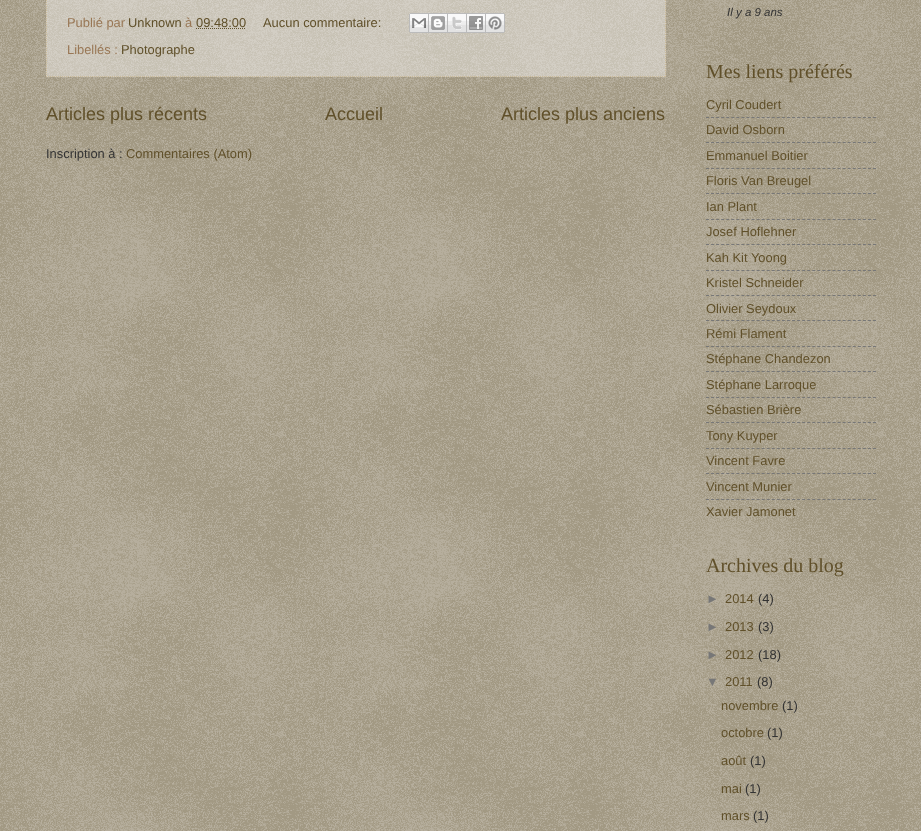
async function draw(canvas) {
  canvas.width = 921
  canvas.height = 831
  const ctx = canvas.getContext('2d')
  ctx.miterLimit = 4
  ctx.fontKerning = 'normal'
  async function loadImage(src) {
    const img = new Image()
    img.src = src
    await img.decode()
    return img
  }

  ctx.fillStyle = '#60502a'
  ctx.fillRect(0, 0, 921, 831)
  ctx.drawImage(await loadImage('image0.png'), 0, 0, 921, 831)
  ctx.fillStyle = '#ffffff66'
  ctx.fillRect(46, 0, 620, 77)
  ctx.beginPath()
  ctx.moveTo(665.5, -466)
  ctx.lineTo(665.5, 77)
  ctx.strokeStyle = '#cb9'
  ctx.setLineDash([1, 1])
  ctx.stroke()
  ctx.beginPath()
  ctx.moveTo(46, 76.5)
  ctx.lineTo(666, 76.5)
  ctx.stroke()
  ctx.beginPath()
  ctx.moveTo(46.5, -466)
  ctx.lineTo(46.5, 77)
  ctx.stroke()
  ctx.font = '12.9px Liberation Sans'
  ctx.fillStyle = '#975'
  ctx.fillText('Publié par', 67, 27)
  ctx.fillStyle = '#60502a'
  ctx.fillText('Unknown', 128, 27)
  ctx.fillStyle = '#975'
  ctx.fillText('à', 185, 27)
  ctx.fillStyle = '#60502a'
  ctx.fillText('09:48:00', 196, 27)
  ctx.beginPath()
  ctx.moveTo(196, 28.5)
  ctx.lineTo(246, 28.5)
  ctx.strokeStyle = '#60502a'
  ctx.stroke()
  ctx.fillText('Aucun commentaire:', 263, 27)
  ctx.drawImage(await loadImage('image1.png'), 409, 13, 20, 20)
  ctx.drawImage(await loadImage('image2.png'), 429, 13, 19, 20)
  ctx.drawImage(await loadImage('image3.png'), 448, 13, 19, 20)
  ctx.drawImage(await loadImage('image4.png'), 467, 13, 19, 20)
  ctx.drawImage(await loadImage('image5.png'), 486, 13, 19, 20)
  ctx.fillStyle = '#975'
  ctx.fillText('Libellés :', 67, 54)
  ctx.fillStyle = '#60502a'
  ctx.fillText('Photographe', 121, 54)
  ctx.font = '18px Liberation Sans'
  ctx.fillText('Articles plus récents', 46, 120)
  ctx.fillText('Accueil', 325, 120)
  ctx.fillText('Articles plus anciens', 501, 120)
  ctx.font = '12.9px Liberation Sans'
  ctx.fillStyle = '#333'
  ctx.fillText('Inscription à :', 46, 158)
  ctx.fillStyle = '#60502a'
  ctx.fillText('Commentaires (Atom)', 126, 158)
  ctx.font = 'italic 11.5px Liberation Sans'
  ctx.fillStyle = '#333'
  ctx.fillText('Il y a 9 ans', 727, 16)
  ctx.font = '20px Liberation Serif'
  ctx.fillStyle = '#60502a'
  ctx.fillText('Mes liens préférés', 706, 78)
  ctx.font = '12.9px Liberation Sans'
  ctx.fillText('Cyril Coudert', 706, 109)
  ctx.beginPath()
  ctx.moveTo(706, 117.5)
  ctx.lineTo(876, 117.5)
  ctx.strokeStyle = '#777'
  ctx.setLineDash([3, 2.06])
  ctx.stroke()
  ctx.fillText('David Osborn', 706, 134)
  ctx.beginPath()
  ctx.moveTo(706, 142.5)
  ctx.lineTo(876, 142.5)
  ctx.stroke()
  ctx.fillText('Emmanuel Boitier', 706, 160)
  ctx.beginPath()
  ctx.moveTo(706, 168.5)
  ctx.lineTo(876, 168.5)
  ctx.stroke()
  ctx.fillText('Floris Van Breugel', 706, 185)
  ctx.beginPath()
  ctx.moveTo(706, 193.5)
  ctx.lineTo(876, 193.5)
  ctx.stroke()
  ctx.fillText('Ian Plant', 706, 211)
  ctx.beginPath()
  ctx.moveTo(706, 219.5)
  ctx.lineTo(876, 219.5)
  ctx.stroke()
  ctx.fillText('Josef Hoflehner', 706, 236)
  ctx.beginPath()
  ctx.moveTo(706, 244.5)
  ctx.lineTo(876, 244.5)
  ctx.stroke()
  ctx.fillText('Kah Kit Yoong', 706, 262)
  ctx.beginPath()
  ctx.moveTo(706, 270.5)
  ctx.lineTo(876, 270.5)
  ctx.stroke()
  ctx.fillText('Kristel Schneider', 706, 287)
  ctx.beginPath()
  ctx.moveTo(706, 295.5)
  ctx.lineTo(876, 295.5)
  ctx.stroke()
  ctx.fillText('Olivier Seydoux', 706, 313)
  ctx.beginPath()
  ctx.moveTo(706, 320.5)
  ctx.lineTo(876, 320.5)
  ctx.stroke()
  ctx.fillText('Rémi Flament', 706, 338)
  ctx.beginPath()
  ctx.moveTo(706, 346.5)
  ctx.lineTo(876, 346.5)
  ctx.stroke()
  ctx.fillText('Stéphane Chandezon', 706, 363)
  ctx.beginPath()
  ctx.moveTo(706, 371.5)
  ctx.lineTo(876, 371.5)
  ctx.stroke()
  ctx.fillText('Stéphane Larroque', 706, 389)
  ctx.beginPath()
  ctx.moveTo(706, 397.5)
  ctx.lineTo(876, 397.5)
  ctx.stroke()
  ctx.fillText('Sébastien Brière', 706, 414)
  ctx.beginPath()
  ctx.moveTo(706, 422.5)
  ctx.lineTo(876, 422.5)
  ctx.stroke()
  ctx.fillText('Tony Kuyper', 706, 440)
  ctx.beginPath()
  ctx.moveTo(706, 448.5)
  ctx.lineTo(876, 448.5)
  ctx.stroke()
  ctx.fillText('Vincent Favre', 706, 465)
  ctx.beginPath()
  ctx.moveTo(706, 473.5)
  ctx.lineTo(876, 473.5)
  ctx.stroke()
  ctx.fillText('Vincent Munier', 706, 491)
  ctx.beginPath()
  ctx.moveTo(706, 499.5)
  ctx.lineTo(876, 499.5)
  ctx.stroke()
  ctx.fillText('Xavier Jamonet', 706, 516)
  ctx.font = '20px Liberation Serif'
  ctx.fillText('Archives du blog', 706, 572)
  ctx.font = '12.9px Liberation Sans'
  ctx.fillStyle = '#777'
  ctx.fillText('►', 706, 603)
  ctx.fillStyle = '#60502a'
  ctx.fillText('2014', 725, 603)
  ctx.fillStyle = '#333'
  ctx.fillText('(4)', 758, 603)
  ctx.fillStyle = '#777'
  ctx.fillText('►', 706, 631)
  ctx.fillStyle = '#60502a'
  ctx.fillText('2013', 725, 631)
  ctx.fillStyle = '#333'
  ctx.fillText('(3)', 758, 631)
  ctx.fillStyle = '#777'
  ctx.fillText('►', 706, 659)
  ctx.fillStyle = '#60502a'
  ctx.fillText('2012', 725, 659)
  ctx.fillStyle = '#333'
  ctx.fillText('(18)', 758, 659)
  ctx.fillStyle = '#777'
  ctx.fillText('▼', 706, 686)
  ctx.fillStyle = '#60502a'
  ctx.fillText('2011', 725, 686)
  ctx.fillStyle = '#333'
  ctx.fillText('(8)', 757, 686)
  ctx.fillStyle = '#60502a'
  ctx.fillText('novembre', 721, 710)
  ctx.fillStyle = '#333'
  ctx.fillText('(1)', 782, 710)
  ctx.fillStyle = '#60502a'
  ctx.fillText('octobre', 721, 737)
  ctx.fillStyle = '#333'
  ctx.fillText('(1)', 767, 737)
  ctx.fillStyle = '#60502a'
  ctx.fillText('août', 721, 765)
  ctx.fillStyle = '#333'
  ctx.fillText('(1)', 750, 765)
  ctx.fillStyle = '#60502a'
  ctx.fillText('mai', 721, 793)
  ctx.fillStyle = '#333'
  ctx.fillText('(1)', 745, 793)
  ctx.fillStyle = '#60502a'
  ctx.fillText('mars', 721, 820)
  ctx.fillStyle = '#333'
  ctx.fillText('(1)', 753, 820)
}

draw(document.querySelector('canvas'))
